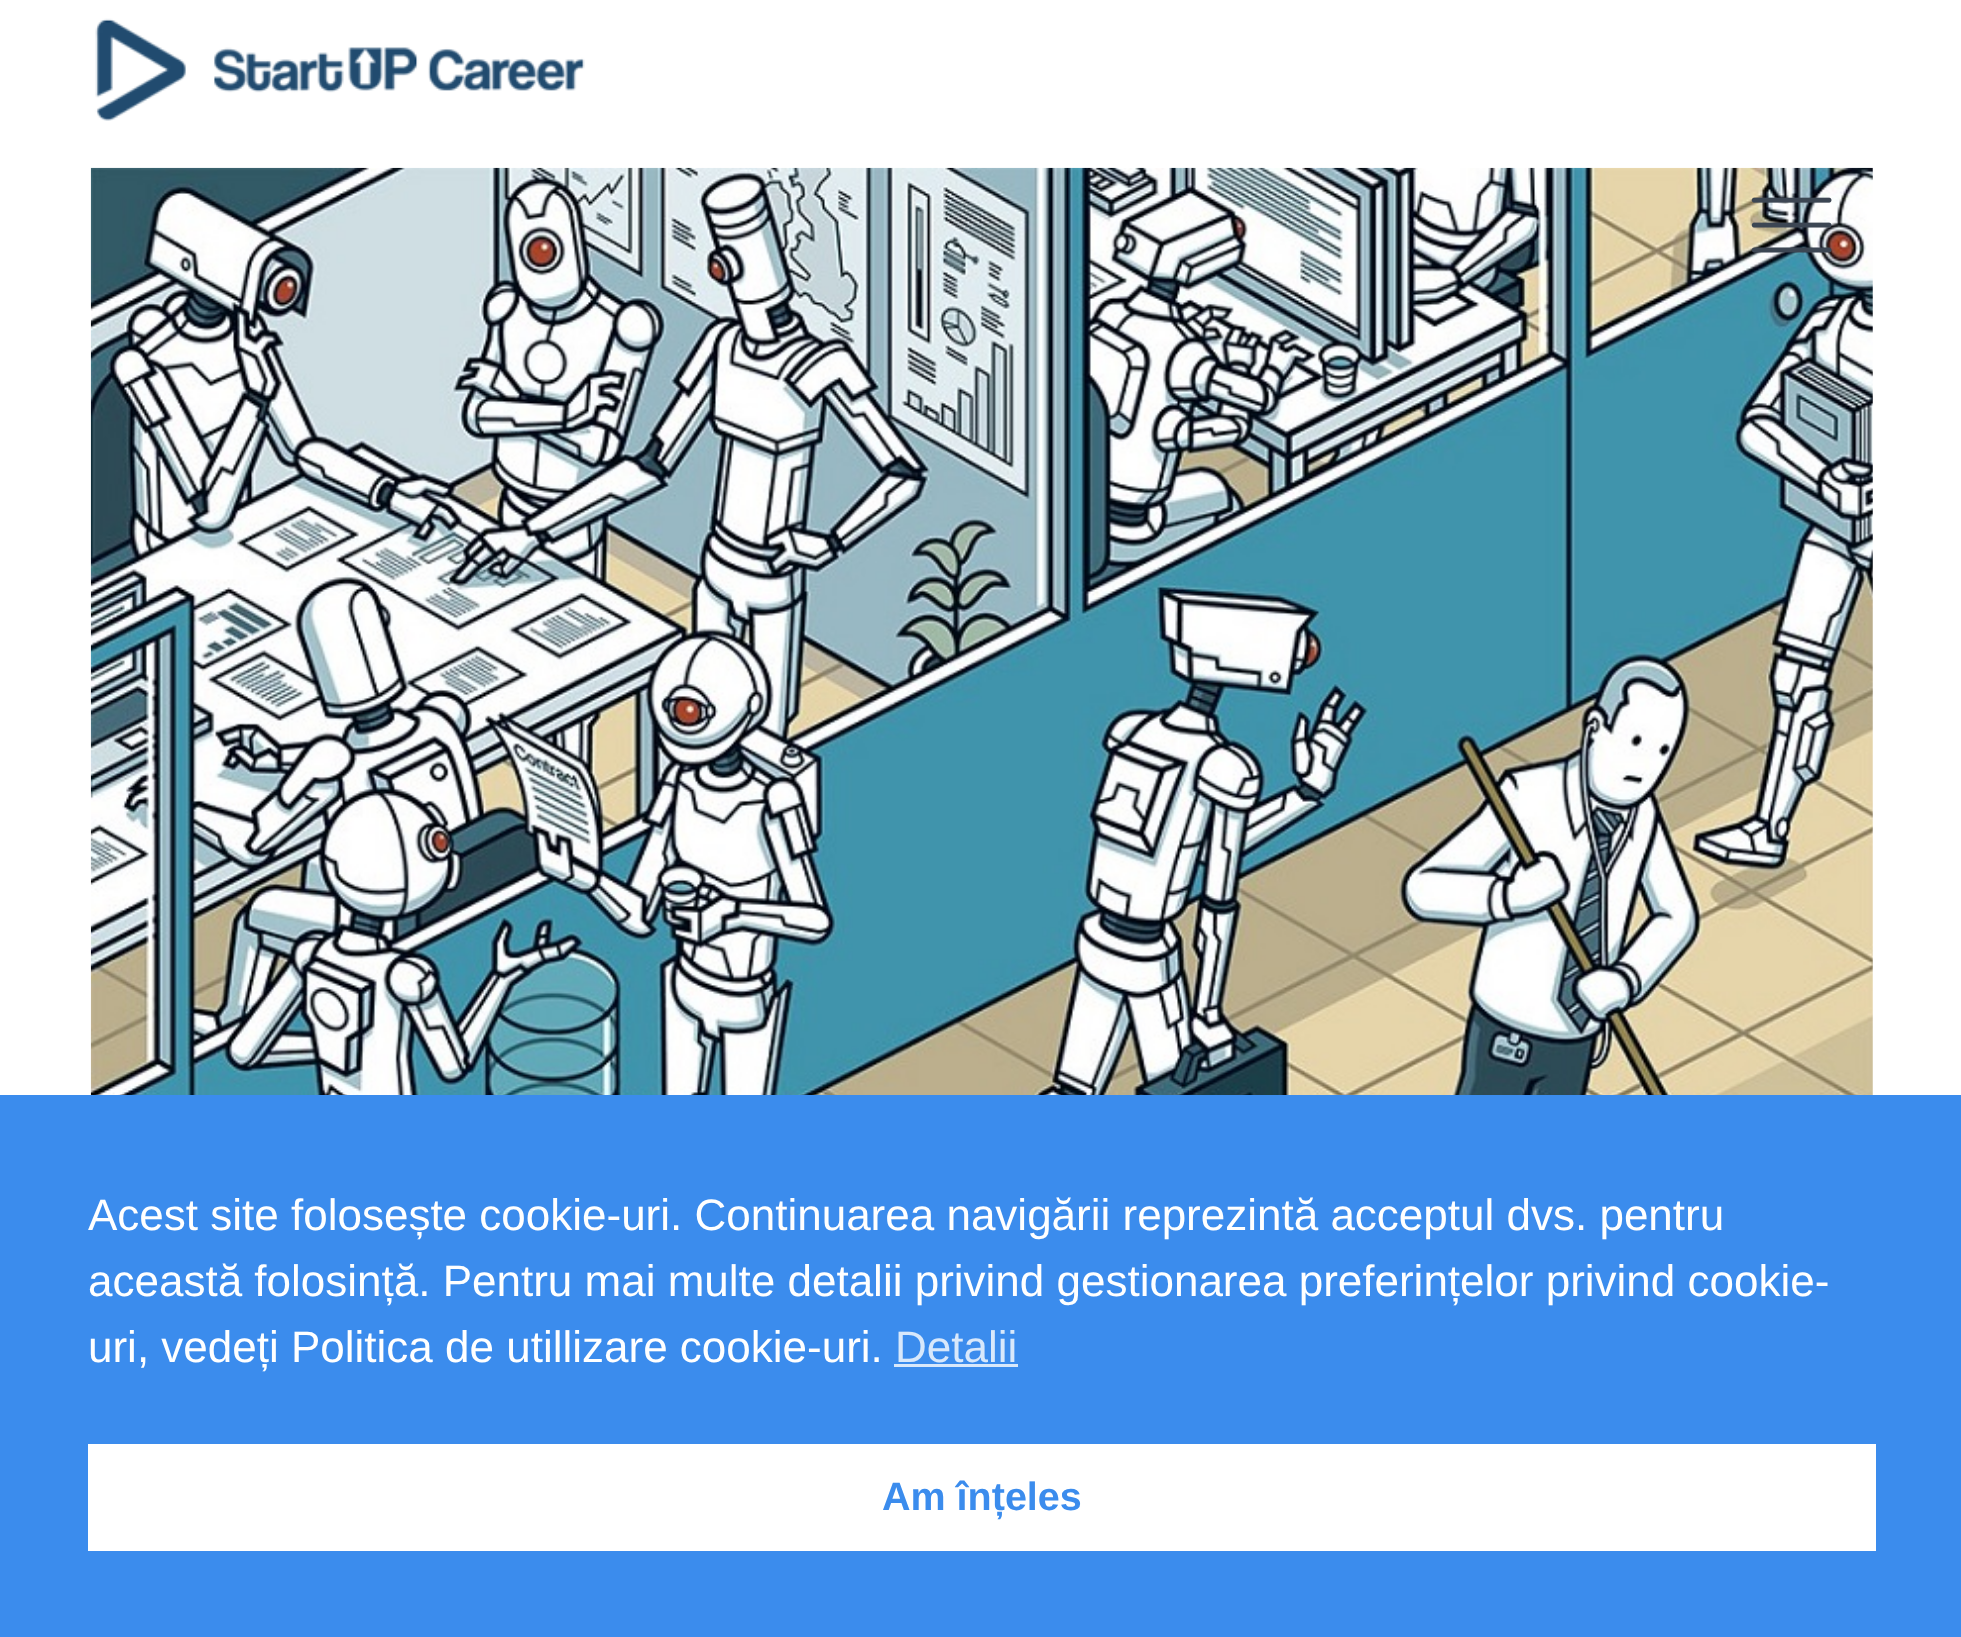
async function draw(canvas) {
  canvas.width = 1961
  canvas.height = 1637
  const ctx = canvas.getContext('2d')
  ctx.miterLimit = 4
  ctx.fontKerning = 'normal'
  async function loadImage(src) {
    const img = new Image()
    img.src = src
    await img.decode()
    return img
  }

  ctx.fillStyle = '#fff'
  ctx.fillRect(0, 0, 1961, 1637)
  ctx.drawImage(await loadImage('image0.png'), 95, 18, 490, 103)
  ctx.drawImage(await loadImage('image2.png'), 90, 167, 1783, 928)
  ctx.drawImage(await loadImage('image1.png'), 1751, 197, 81, 56)
  ctx.fillStyle = '#3b8ced'
  ctx.fillRect(0, 1095, 1961, 542)
  ctx.font = '44px Liberation Sans'
  ctx.fillStyle = '#fff'
  ctx.fillText('Acest site folosește cookie-uri. Continuarea navigării reprezintă acceptul dvs. pentru', 88, 1230)
  ctx.fillText('această folosință. Pentru mai multe detalii privind gestionarea preferințelor privind cookie-', 88, 1296)
  ctx.fillText('uri, vedeți Politica de utillizare cookie-uri.', 88, 1362)
  ctx.fillStyle = '#d8e8fb'
  ctx.fillText('Detalii', 895, 1362)
  ctx.fillRect(894, 1364, 124, 3)
  ctx.fillStyle = '#fff'
  ctx.fillRect(88, 1444, 1788, 107)
  ctx.font = 'bold 39.5px Liberation Sans'
  ctx.fillStyle = '#3b8ced'
  ctx.fillText('Am înțeles', 882, 1510)
}

draw(document.querySelector('canvas'))
